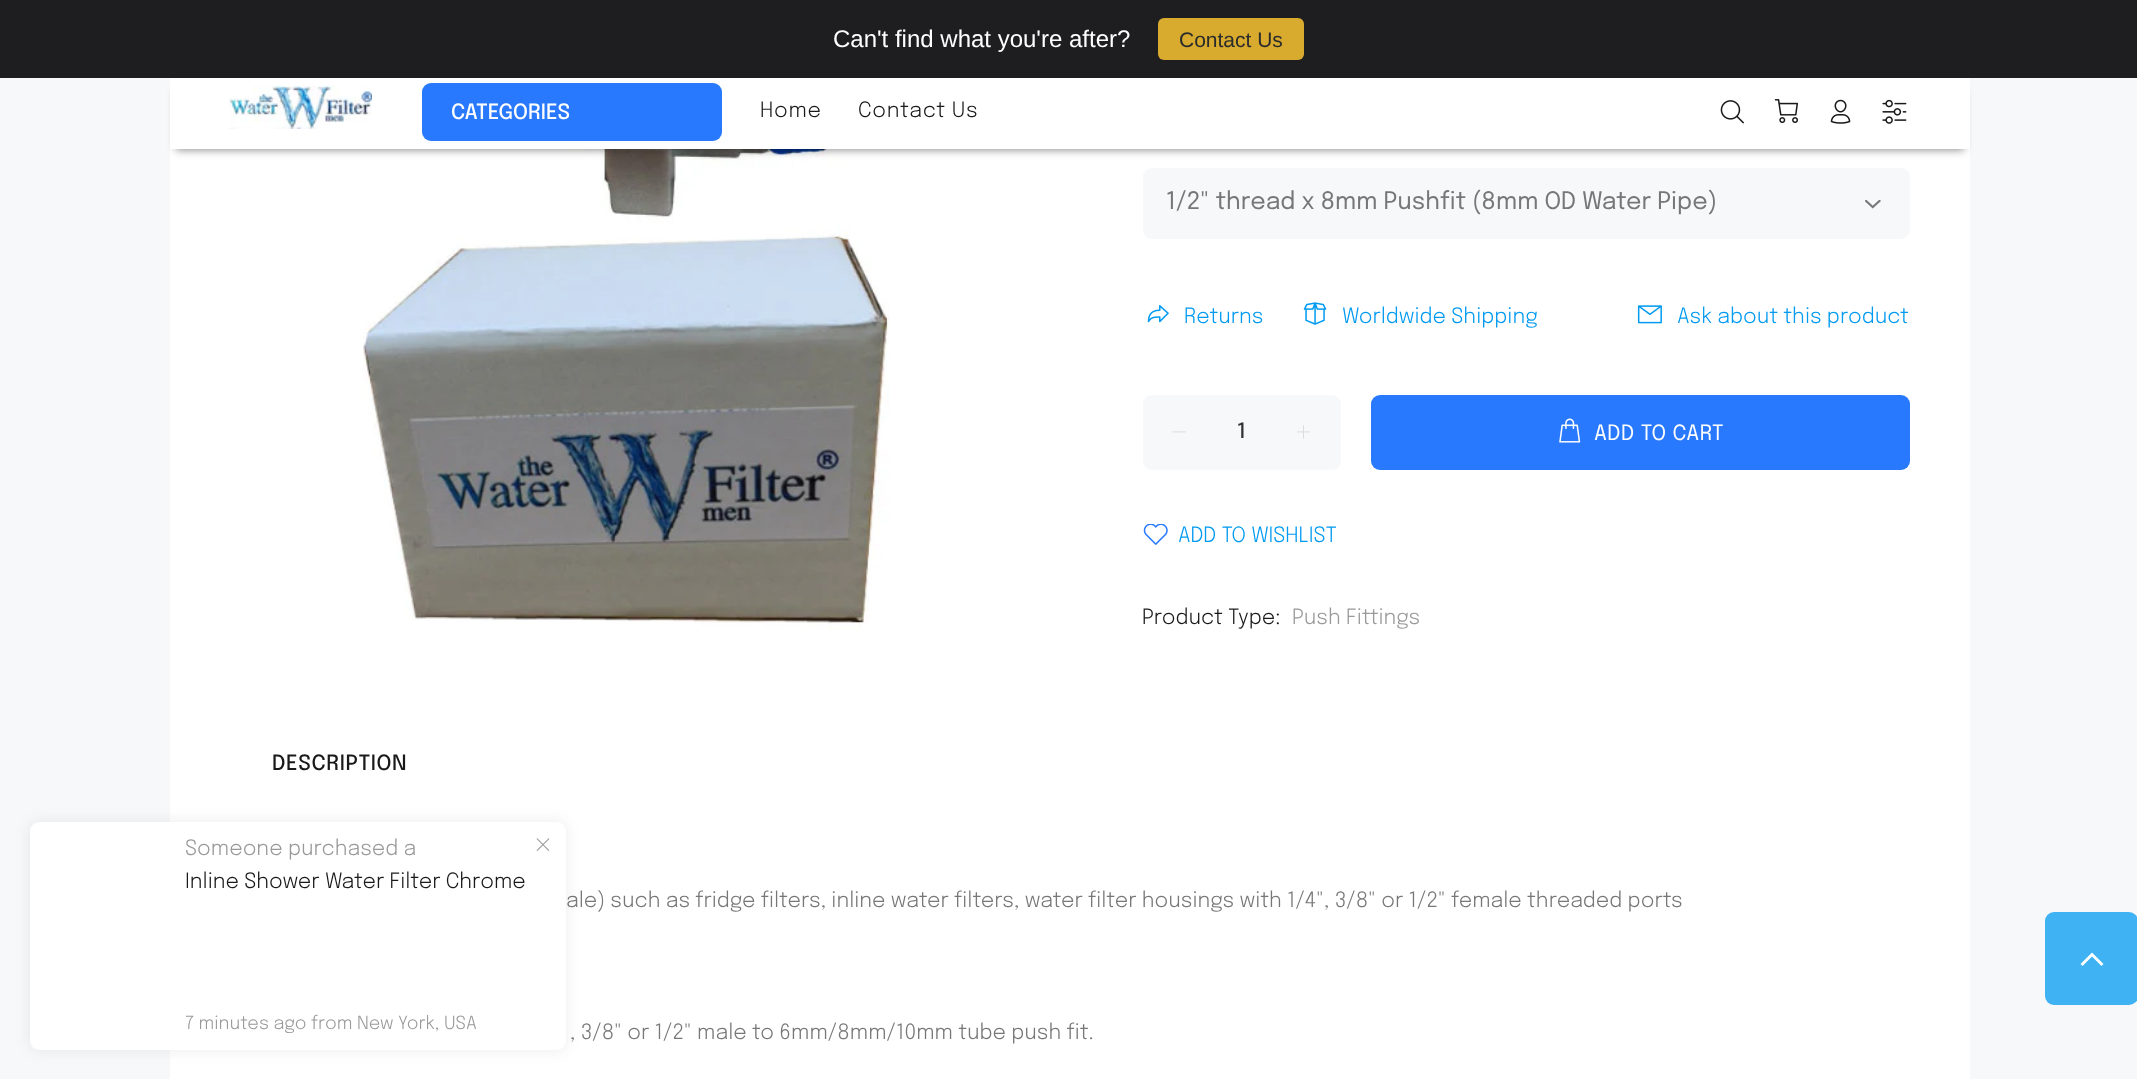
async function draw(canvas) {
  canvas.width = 2137
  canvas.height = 1079
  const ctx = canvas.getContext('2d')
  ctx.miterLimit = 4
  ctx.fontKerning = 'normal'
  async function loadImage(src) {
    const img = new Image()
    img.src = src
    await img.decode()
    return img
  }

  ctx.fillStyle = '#f7f8fa'
  ctx.fillRect(0, 0, 2137, 1079)
  ctx.fillStyle = '#fff'
  ctx.fillRect(170, 149, 1800, 930)
  ctx.drawImage(await loadImage('image5.png'), 363, 149, 527, 481)
  ctx.fillStyle = '#00000073'
  ctx.filter = 'blur(4px)'
  ctx.beginPath()
  ctx.rect(176, 90, 1788, 60)
  ctx.fill()
  ctx.filter = 'none'
  ctx.fillStyle = '#1e1e20'
  ctx.fillRect(0, 0, 2137, 78)
  ctx.font = '24px Liberation Sans'
  ctx.fillStyle = '#fff'
  ctx.fillText('Can\'t find what you\'re after?', 833, 47)
  ctx.fillStyle = '#d8ab2e'
  ctx.beginPath()
  ctx.roundRect(1158, 18, 146, 42, 6)
  ctx.fill()
  ctx.font = '21px Liberation Sans'
  ctx.fillStyle = '#2a2c2b'
  ctx.fillText('Contact Us', 1179, 47)
  ctx.fillStyle = '#fff'
  ctx.fillRect(170, 78, 1800, 71)
  ctx.drawImage(await loadImage('image0.png'), 229, 85, 143, 44)
  ctx.fillStyle = '#2879fe'
  ctx.beginPath()
  ctx.roundRect(422, 83, 300, 58, 9)
  ctx.fill()
  ctx.font = '500 21px Epilogue'
  ctx.fillStyle = '#fff'
  ctx.fillText('CATEGORIES', 451, 119)
  ctx.letterSpacing = '0.75px'
  ctx.font = '300 21px Epilogue'
  ctx.fillStyle = '#191919'
  ctx.fillText('Home', 760, 117)
  ctx.fillText('Contact Us', 858, 117)
  ctx.drawImage(await loadImage('image1.png'), 1720, 100, 24, 24)
  ctx.drawImage(await loadImage('image2.png'), 1774, 99, 24, 24)
  ctx.drawImage(await loadImage('image3.png'), 1830, 99, 21, 25)
  ctx.drawImage(await loadImage('image4.png'), 1882, 99, 25, 25)
  ctx.fillStyle = '#f7f8fa'
  ctx.beginPath()
  ctx.roundRect(1143, 168, 767, 71, 9)
  ctx.fill()
  ctx.drawImage(await loadImage('image6.png'), 1865, 200, 16, 9)
  ctx.letterSpacing = '0px'
  ctx.font = '24px Epilogue'
  ctx.fillStyle = '#777'
  ctx.fillText('1/2" thread x 8mm Pushfit (8mm OD Water Pipe)', 1166, 209)
  ctx.drawImage(await loadImage('image7.png'), 1147, 305, 22, 18)
  ctx.font = '300 21px Epilogue'
  ctx.fillStyle = '#009af1'
  ctx.fillText('Returns', 1184, 323)
  ctx.drawImage(await loadImage('image8.png'), 1303, 302, 24, 23)
  ctx.fillText('Worldwide Shipping', 1342, 323)
  ctx.drawImage(await loadImage('image9.png'), 1637, 305, 25, 19)
  ctx.fillText('Ask about this product', 1677, 323)
  ctx.fillStyle = '#f7f8fa'
  ctx.beginPath()
  ctx.roundRect(1143, 395, 198, 75, 9)
  ctx.fill()
  ctx.drawImage(await loadImage('image10.png'), 1172, 431, 14, 2)
  ctx.font = '500 21px Epilogue'
  ctx.fillStyle = '#333'
  ctx.fillText('1', 1237, 438)
  ctx.drawImage(await loadImage('image11.png'), 1297, 425, 13, 14)
  ctx.fillStyle = '#2879fe'
  ctx.beginPath()
  ctx.roundRect(1371, 395, 539, 75, 9)
  ctx.fill()
  ctx.drawImage(await loadImage('image12.png'), 1559, 418, 22, 25)
  ctx.letterSpacing = '0.6px'
  ctx.font = '21px Epilogue'
  ctx.fillStyle = '#fff'
  ctx.fillText('ADD TO CART', 1594, 440)
  ctx.drawImage(await loadImage('image13.png'), 1143, 524, 25, 21)
  ctx.letterSpacing = '0px'
  ctx.font = '300 21px Epilogue'
  ctx.fillStyle = '#009af1'
  ctx.fillText('ADD TO WISHLIST', 1178, 542)
  ctx.fillStyle = '#191919'
  ctx.fillText('Product Type:', 1142, 624)
  ctx.fillStyle = '#999'
  ctx.fillText('Push Fittings', 1292, 624)
  ctx.letterSpacing = '0.6px'
  ctx.font = '500 21px Epilogue'
  ctx.fillStyle = '#191919'
  ctx.fillText('DESCRIPTION', 272, 770)
  ctx.letterSpacing = '0px'
  ctx.font = '300 21px Epilogue'
  ctx.fillStyle = '#777'
  ctx.fillText('ale) such as fridge filters, inline water filters, water filter housings with 1/4", 3/8" or 1/2" female threaded ports', 566, 907)
  ctx.fillText(', 3/8" or 1/2" male to 6mm/8mm/10mm tube push fit.', 570, 1039)
  ctx.fillStyle = '#00000014'
  ctx.filter = 'blur(7.5px)'
  ctx.beginPath()
  ctx.roundRect(30, 822, 536, 228, 9)
  ctx.fill()
  ctx.filter = 'none'
  ctx.fillStyle = '#fff'
  ctx.beginPath()
  ctx.roundRect(30, 822, 536, 228, 9)
  ctx.fill()
  ctx.fillStyle = '#999'
  ctx.fillText('Someone purchased a', 185, 855)
  ctx.fillStyle = '#191919'
  ctx.fillText('Inline Shower Water Filter Chrome', 185, 888)
  ctx.font = '300 18px Epilogue'
  ctx.fillStyle = '#999'
  ctx.fillText('7 minutes ago from New York, USA', 185, 1029)
  ctx.drawImage(await loadImage('image14.png'), 536, 838, 14, 13)
  ctx.fillStyle = '#3eb2f3'
  ctx.beginPath()
  ctx.roundRect(2045, 912, 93, 93, 9)
  ctx.fill()
  ctx.fillStyle = '#fff'
  ctx.beginPath()
  ctx.moveTo(2101.5, 966)
  ctx.lineTo(2092, 956.5)
  ctx.lineTo(2082.5, 966)
  ctx.lineTo(2080.5, 964)
  ctx.lineTo(2092, 952.5)
  ctx.lineTo(2103.5, 964)
  ctx.closePath()
  ctx.fill()
}

draw(document.querySelector('canvas'))
